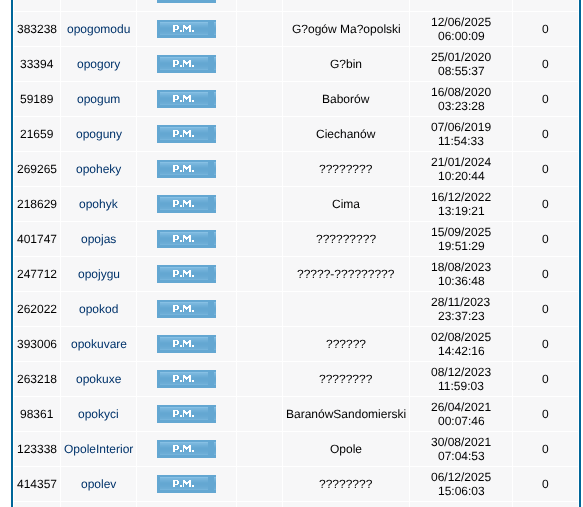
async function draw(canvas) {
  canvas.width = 583
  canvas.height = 507
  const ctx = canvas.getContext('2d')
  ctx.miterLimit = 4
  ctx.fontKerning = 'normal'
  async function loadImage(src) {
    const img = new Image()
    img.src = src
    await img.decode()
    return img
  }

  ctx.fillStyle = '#fff'
  ctx.fillRect(0, 0, 583, 507)
  ctx.strokeStyle = '#069'
  ctx.lineWidth = 2
  ctx.strokeRect(12, -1, 568, 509)
  ctx.fillStyle = '#f7f7f8'
  ctx.fillRect(14, 0, 46, 11)
  ctx.fillRect(61, 0, 75, 11)
  ctx.fillRect(137, 0, 99, 11)
  ctx.fillStyle = '#64a7d2'
  ctx.fillRect(157, 0, 59, 3)
  ctx.fillStyle = '#f7f7f8'
  ctx.fillRect(237, 0, 45, 11)
  ctx.fillRect(283, 0, 126, 11)
  ctx.fillRect(410, 0, 102, 11)
  ctx.fillRect(513, 0, 65, 11)
  ctx.fillRect(14, 12, 46, 34)
  ctx.font = '12px Liberation Sans'
  ctx.fillStyle = '#000'
  ctx.fillText('383238', 17, 33)
  ctx.fillStyle = '#f7f7f8'
  ctx.fillRect(61, 12, 75, 34)
  ctx.fillStyle = '#01336b'
  ctx.fillText('opogomodu', 67, 33)
  ctx.fillStyle = '#f7f7f8'
  ctx.fillRect(137, 12, 99, 34)
  ctx.drawImage(await loadImage('image0.png'), 157, 20, 59, 18)
  ctx.fillRect(237, 12, 45, 34)
  ctx.fillRect(283, 12, 126, 34)
  ctx.fillStyle = '#000'
  ctx.fillText('G?ogów Ma?opolski', 292, 33)
  ctx.fillStyle = '#f7f7f8'
  ctx.fillRect(410, 12, 102, 34)
  ctx.fillStyle = '#000'
  ctx.fillText('12/06/2025', 431, 26)
  ctx.fillText('06:00:09', 438, 40)
  ctx.fillStyle = '#f7f7f8'
  ctx.fillRect(513, 12, 65, 34)
  ctx.fillStyle = '#000'
  ctx.fillText('0', 542, 33)
  ctx.fillStyle = '#f7f7f8'
  ctx.fillRect(14, 47, 46, 34)
  ctx.fillStyle = '#000'
  ctx.fillText('33394', 20, 68)
  ctx.fillStyle = '#f7f7f8'
  ctx.fillRect(61, 47, 75, 34)
  ctx.fillStyle = '#01336b'
  ctx.fillText('opogory', 77, 68)
  ctx.fillStyle = '#f7f7f8'
  ctx.fillRect(137, 47, 99, 34)
  ctx.drawImage(await loadImage('image0.png'), 157, 55, 59, 18)
  ctx.fillRect(237, 47, 45, 34)
  ctx.fillRect(283, 47, 126, 34)
  ctx.fillStyle = '#000'
  ctx.fillText('G?bin', 330, 68)
  ctx.fillStyle = '#f7f7f8'
  ctx.fillRect(410, 47, 102, 34)
  ctx.fillStyle = '#000'
  ctx.fillText('25/01/2020', 431, 61)
  ctx.fillText('08:55:37', 438, 75)
  ctx.fillStyle = '#f7f7f8'
  ctx.fillRect(513, 47, 65, 34)
  ctx.fillStyle = '#000'
  ctx.fillText('0', 542, 68)
  ctx.fillStyle = '#f7f7f8'
  ctx.fillRect(14, 82, 46, 34)
  ctx.fillStyle = '#000'
  ctx.fillText('59189', 20, 103)
  ctx.fillStyle = '#f7f7f8'
  ctx.fillRect(61, 82, 75, 34)
  ctx.fillStyle = '#01336b'
  ctx.fillText('opogum', 77, 103)
  ctx.fillStyle = '#f7f7f8'
  ctx.fillRect(137, 82, 99, 34)
  ctx.drawImage(await loadImage('image0.png'), 157, 90, 59, 18)
  ctx.fillRect(237, 82, 45, 34)
  ctx.fillRect(283, 82, 126, 34)
  ctx.fillStyle = '#000'
  ctx.fillText('Baborów', 322, 103)
  ctx.fillStyle = '#f7f7f8'
  ctx.fillRect(410, 82, 102, 34)
  ctx.fillStyle = '#000'
  ctx.fillText('16/08/2020', 431, 96)
  ctx.fillText('03:23:28', 438, 110)
  ctx.fillStyle = '#f7f7f8'
  ctx.fillRect(513, 82, 65, 34)
  ctx.fillStyle = '#000'
  ctx.fillText('0', 542, 103)
  ctx.fillStyle = '#f7f7f8'
  ctx.fillRect(14, 117, 46, 34)
  ctx.fillStyle = '#000'
  ctx.fillText('21659', 20, 138)
  ctx.fillStyle = '#f7f7f8'
  ctx.fillRect(61, 117, 75, 34)
  ctx.fillStyle = '#01336b'
  ctx.fillText('opoguny', 76, 138)
  ctx.fillStyle = '#f7f7f8'
  ctx.fillRect(137, 117, 99, 34)
  ctx.drawImage(await loadImage('image0.png'), 157, 125, 59, 18)
  ctx.fillRect(237, 117, 45, 34)
  ctx.fillRect(283, 117, 126, 34)
  ctx.fillStyle = '#000'
  ctx.fillText('Ciechanów', 316, 138)
  ctx.fillStyle = '#f7f7f8'
  ctx.fillRect(410, 117, 102, 34)
  ctx.fillStyle = '#000'
  ctx.fillText('07/06/2019', 431, 131)
  ctx.fillText('11:54:33', 438, 145)
  ctx.fillStyle = '#f7f7f8'
  ctx.fillRect(513, 117, 65, 34)
  ctx.fillStyle = '#000'
  ctx.fillText('0', 542, 138)
  ctx.fillStyle = '#f7f7f8'
  ctx.fillRect(14, 152, 46, 34)
  ctx.fillStyle = '#000'
  ctx.fillText('269265', 17, 173)
  ctx.fillStyle = '#f7f7f8'
  ctx.fillRect(61, 152, 75, 34)
  ctx.fillStyle = '#01336b'
  ctx.fillText('opoheky', 76, 173)
  ctx.fillStyle = '#f7f7f8'
  ctx.fillRect(137, 152, 99, 34)
  ctx.drawImage(await loadImage('image0.png'), 157, 160, 59, 18)
  ctx.fillRect(237, 152, 45, 34)
  ctx.fillRect(283, 152, 126, 34)
  ctx.fillStyle = '#000'
  ctx.fillText('????????', 319, 173)
  ctx.fillStyle = '#f7f7f8'
  ctx.fillRect(410, 152, 102, 34)
  ctx.fillStyle = '#000'
  ctx.fillText('21/01/2024', 431, 166)
  ctx.fillText('10:20:44', 438, 180)
  ctx.fillStyle = '#f7f7f8'
  ctx.fillRect(513, 152, 65, 34)
  ctx.fillStyle = '#000'
  ctx.fillText('0', 542, 173)
  ctx.fillStyle = '#f7f7f8'
  ctx.fillRect(14, 187, 46, 34)
  ctx.fillStyle = '#000'
  ctx.fillText('218629', 17, 208)
  ctx.fillStyle = '#f7f7f8'
  ctx.fillRect(61, 187, 75, 34)
  ctx.fillStyle = '#01336b'
  ctx.fillText('opohyk', 79, 208)
  ctx.fillStyle = '#f7f7f8'
  ctx.fillRect(137, 187, 99, 34)
  ctx.drawImage(await loadImage('image0.png'), 157, 195, 59, 18)
  ctx.fillRect(237, 187, 45, 34)
  ctx.fillRect(283, 187, 126, 34)
  ctx.fillStyle = '#000'
  ctx.fillText('Cima', 332, 208)
  ctx.fillStyle = '#f7f7f8'
  ctx.fillRect(410, 187, 102, 34)
  ctx.fillStyle = '#000'
  ctx.fillText('16/12/2022', 431, 201)
  ctx.fillText('13:19:21', 438, 215)
  ctx.fillStyle = '#f7f7f8'
  ctx.fillRect(513, 187, 65, 34)
  ctx.fillStyle = '#000'
  ctx.fillText('0', 542, 208)
  ctx.fillStyle = '#f7f7f8'
  ctx.fillRect(14, 222, 46, 34)
  ctx.fillStyle = '#000'
  ctx.fillText('401747', 17, 243)
  ctx.fillStyle = '#f7f7f8'
  ctx.fillRect(61, 222, 75, 34)
  ctx.fillStyle = '#01336b'
  ctx.fillText('opojas', 81, 243)
  ctx.fillStyle = '#f7f7f8'
  ctx.fillRect(137, 222, 99, 34)
  ctx.drawImage(await loadImage('image0.png'), 157, 230, 59, 18)
  ctx.fillRect(237, 222, 45, 34)
  ctx.fillRect(283, 222, 126, 34)
  ctx.fillStyle = '#000'
  ctx.fillText('?????????', 316, 243)
  ctx.fillStyle = '#f7f7f8'
  ctx.fillRect(410, 222, 102, 34)
  ctx.fillStyle = '#000'
  ctx.fillText('15/09/2025', 431, 236)
  ctx.fillText('19:51:29', 438, 250)
  ctx.fillStyle = '#f7f7f8'
  ctx.fillRect(513, 222, 65, 34)
  ctx.fillStyle = '#000'
  ctx.fillText('0', 542, 243)
  ctx.fillStyle = '#f7f7f8'
  ctx.fillRect(14, 257, 46, 34)
  ctx.fillStyle = '#000'
  ctx.fillText('247712', 17, 278)
  ctx.fillStyle = '#f7f7f8'
  ctx.fillRect(61, 257, 75, 34)
  ctx.fillStyle = '#01336b'
  ctx.fillText('opojygu', 78, 278)
  ctx.fillStyle = '#f7f7f8'
  ctx.fillRect(137, 257, 99, 34)
  ctx.drawImage(await loadImage('image0.png'), 157, 265, 59, 18)
  ctx.fillRect(237, 257, 45, 34)
  ctx.fillRect(283, 257, 126, 34)
  ctx.fillStyle = '#000'
  ctx.fillText('?????-?????????', 297, 278)
  ctx.fillStyle = '#f7f7f8'
  ctx.fillRect(410, 257, 102, 34)
  ctx.fillStyle = '#000'
  ctx.fillText('18/08/2023', 431, 271)
  ctx.fillText('10:36:48', 438, 285)
  ctx.fillStyle = '#f7f7f8'
  ctx.fillRect(513, 257, 65, 34)
  ctx.fillStyle = '#000'
  ctx.fillText('0', 542, 278)
  ctx.fillStyle = '#f7f7f8'
  ctx.fillRect(14, 292, 46, 34)
  ctx.fillStyle = '#000'
  ctx.fillText('262022', 17, 313)
  ctx.fillStyle = '#f7f7f8'
  ctx.fillRect(61, 292, 75, 34)
  ctx.fillStyle = '#01336b'
  ctx.fillText('opokod', 79, 313)
  ctx.fillStyle = '#f7f7f8'
  ctx.fillRect(137, 292, 99, 34)
  ctx.drawImage(await loadImage('image0.png'), 157, 300, 59, 18)
  ctx.fillRect(237, 292, 45, 34)
  ctx.fillRect(283, 292, 126, 34)
  ctx.fillRect(410, 292, 102, 34)
  ctx.fillStyle = '#000'
  ctx.fillText('28/11/2023', 431, 306)
  ctx.fillText('23:37:23', 438, 320)
  ctx.fillStyle = '#f7f7f8'
  ctx.fillRect(513, 292, 65, 34)
  ctx.fillStyle = '#000'
  ctx.fillText('0', 542, 313)
  ctx.fillStyle = '#f7f7f8'
  ctx.fillRect(14, 327, 46, 34)
  ctx.fillStyle = '#000'
  ctx.fillText('393006', 17, 348)
  ctx.fillStyle = '#f7f7f8'
  ctx.fillRect(61, 327, 75, 34)
  ctx.fillStyle = '#01336b'
  ctx.fillText('opokuvare', 71, 348)
  ctx.fillStyle = '#f7f7f8'
  ctx.fillRect(137, 327, 99, 34)
  ctx.drawImage(await loadImage('image0.png'), 157, 335, 59, 18)
  ctx.fillRect(237, 327, 45, 34)
  ctx.fillRect(283, 327, 126, 34)
  ctx.fillStyle = '#000'
  ctx.fillText('??????', 326, 348)
  ctx.fillStyle = '#f7f7f8'
  ctx.fillRect(410, 327, 102, 34)
  ctx.fillStyle = '#000'
  ctx.fillText('02/08/2025', 431, 341)
  ctx.fillText('14:42:16', 438, 355)
  ctx.fillStyle = '#f7f7f8'
  ctx.fillRect(513, 327, 65, 34)
  ctx.fillStyle = '#000'
  ctx.fillText('0', 542, 348)
  ctx.fillStyle = '#f7f7f8'
  ctx.fillRect(14, 362, 46, 34)
  ctx.fillStyle = '#000'
  ctx.fillText('263218', 17, 383)
  ctx.fillStyle = '#f7f7f8'
  ctx.fillRect(61, 362, 75, 34)
  ctx.fillStyle = '#01336b'
  ctx.fillText('opokuxe', 76, 383)
  ctx.fillStyle = '#f7f7f8'
  ctx.fillRect(137, 362, 99, 34)
  ctx.drawImage(await loadImage('image0.png'), 157, 370, 59, 18)
  ctx.fillRect(237, 362, 45, 34)
  ctx.fillRect(283, 362, 126, 34)
  ctx.fillStyle = '#000'
  ctx.fillText('????????', 319, 383)
  ctx.fillStyle = '#f7f7f8'
  ctx.fillRect(410, 362, 102, 34)
  ctx.fillStyle = '#000'
  ctx.fillText('08/12/2023', 431, 376)
  ctx.fillText('11:59:03', 438, 390)
  ctx.fillStyle = '#f7f7f8'
  ctx.fillRect(513, 362, 65, 34)
  ctx.fillStyle = '#000'
  ctx.fillText('0', 542, 383)
  ctx.fillStyle = '#f7f7f8'
  ctx.fillRect(14, 397, 46, 34)
  ctx.fillStyle = '#000'
  ctx.fillText('98361', 20, 418)
  ctx.fillStyle = '#f7f7f8'
  ctx.fillRect(61, 397, 75, 34)
  ctx.fillStyle = '#01336b'
  ctx.fillText('opokyci', 78, 418)
  ctx.fillStyle = '#f7f7f8'
  ctx.fillRect(137, 397, 99, 34)
  ctx.drawImage(await loadImage('image0.png'), 157, 405, 59, 18)
  ctx.fillRect(237, 397, 45, 34)
  ctx.fillRect(283, 397, 126, 34)
  ctx.fillStyle = '#000'
  ctx.fillText('BaranówSandomierski', 286, 418)
  ctx.fillStyle = '#f7f7f8'
  ctx.fillRect(410, 397, 102, 34)
  ctx.fillStyle = '#000'
  ctx.fillText('26/04/2021', 431, 411)
  ctx.fillText('00:07:46', 438, 425)
  ctx.fillStyle = '#f7f7f8'
  ctx.fillRect(513, 397, 65, 34)
  ctx.fillStyle = '#000'
  ctx.fillText('0', 542, 418)
  ctx.fillStyle = '#f7f7f8'
  ctx.fillRect(14, 432, 46, 34)
  ctx.fillStyle = '#000'
  ctx.fillText('123338', 17, 453)
  ctx.fillStyle = '#f7f7f8'
  ctx.fillRect(61, 432, 75, 34)
  ctx.fillStyle = '#01336b'
  ctx.fillText('OpoleInterior', 64, 453)
  ctx.fillStyle = '#f7f7f8'
  ctx.fillRect(137, 432, 99, 34)
  ctx.drawImage(await loadImage('image0.png'), 157, 440, 59, 18)
  ctx.fillRect(237, 432, 45, 34)
  ctx.fillRect(283, 432, 126, 34)
  ctx.fillStyle = '#000'
  ctx.fillText('Opole', 330, 453)
  ctx.fillStyle = '#f7f7f8'
  ctx.fillRect(410, 432, 102, 34)
  ctx.fillStyle = '#000'
  ctx.fillText('30/08/2021', 431, 446)
  ctx.fillText('07:04:53', 438, 460)
  ctx.fillStyle = '#f7f7f8'
  ctx.fillRect(513, 432, 65, 34)
  ctx.fillStyle = '#000'
  ctx.fillText('0', 542, 453)
  ctx.fillStyle = '#f7f7f8'
  ctx.fillRect(14, 467, 46, 34)
  ctx.fillStyle = '#000'
  ctx.fillText('414357', 17, 488)
  ctx.fillStyle = '#f7f7f8'
  ctx.fillRect(61, 467, 75, 34)
  ctx.fillStyle = '#01336b'
  ctx.fillText('opolev', 81, 488)
  ctx.fillStyle = '#f7f7f8'
  ctx.fillRect(137, 467, 99, 34)
  ctx.drawImage(await loadImage('image0.png'), 157, 475, 59, 18)
  ctx.fillRect(237, 467, 45, 34)
  ctx.fillRect(283, 467, 126, 34)
  ctx.fillStyle = '#000'
  ctx.fillText('????????', 319, 488)
  ctx.fillStyle = '#f7f7f8'
  ctx.fillRect(410, 467, 102, 34)
  ctx.fillStyle = '#000'
  ctx.fillText('06/12/2025', 431, 481)
  ctx.fillText('15:06:03', 438, 495)
  ctx.fillStyle = '#f7f7f8'
  ctx.fillRect(513, 467, 65, 34)
  ctx.fillStyle = '#000'
  ctx.fillText('0', 542, 488)
  ctx.fillStyle = '#f7f7f8'
  ctx.fillRect(14, 502, 46, 5)
  ctx.fillRect(61, 502, 75, 5)
  ctx.fillRect(137, 502, 99, 5)
  ctx.fillRect(237, 502, 45, 5)
  ctx.fillRect(283, 502, 126, 5)
  ctx.fillRect(410, 502, 102, 5)
  ctx.fillRect(513, 502, 65, 5)
}

draw(document.querySelector('canvas'))
